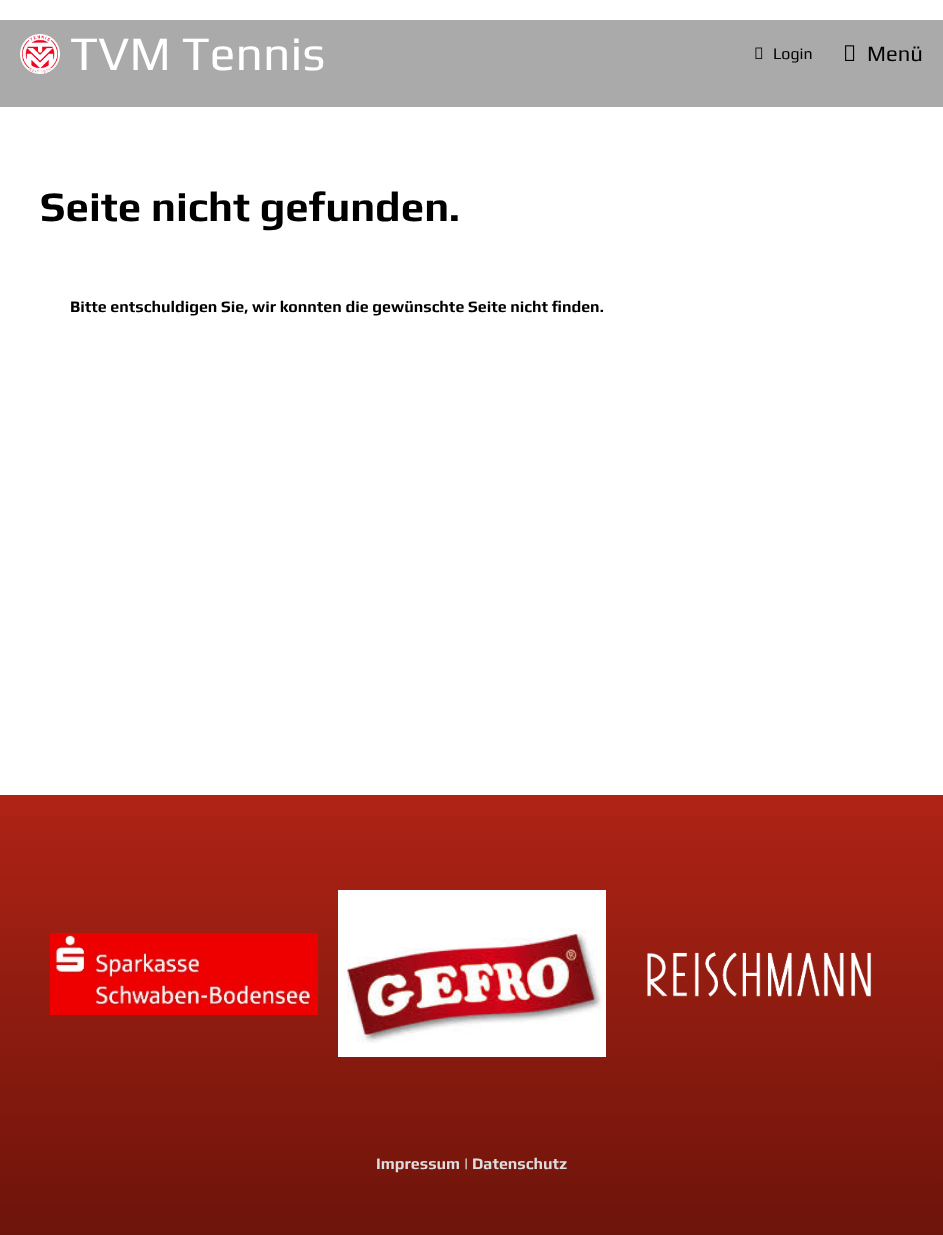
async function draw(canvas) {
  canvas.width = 943
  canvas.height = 1235
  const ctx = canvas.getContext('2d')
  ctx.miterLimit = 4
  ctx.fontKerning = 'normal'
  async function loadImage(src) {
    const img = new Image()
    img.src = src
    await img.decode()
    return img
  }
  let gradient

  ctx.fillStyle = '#fff'
  ctx.fillRect(0, 0, 943, 1235)
  ctx.fillStyle = '#aaa'
  ctx.fillRect(0, 20, 943, 87)
  ctx.drawImage(await loadImage('image0.png'), 20, 34, 40, 40)
  ctx.font = '48px Play'
  ctx.fillStyle = '#fff'
  ctx.fillText('TVM Tennis', 70, 70)
  ctx.drawImage(await loadImage('image1.png'), 755, 47, 8, 12)
  ctx.font = '16px Play'
  ctx.fillStyle = '#000'
  ctx.fillText('Login', 773, 59)
  ctx.drawImage(await loadImage('image2.png'), 845, 45, 10, 16)
  ctx.font = '22px Play'
  ctx.fillText('Menü', 867, 61)
  ctx.font = 'bold 42px Play'
  ctx.fillText('Seite nicht gefunden.', 40, 221)
  ctx.font = 'bold 16px Play'
  ctx.fillText('Bitte entschuldigen Sie, wir konnten die gewünschte Seite nicht finden.', 70, 312)
  gradient = ctx.createLinearGradient(472, 795, 472, 1235)
  gradient.addColorStop(0, '#af2315')
  gradient.addColorStop(1, '#6d140b')
  ctx.fillStyle = gradient
  ctx.fillRect(0, 795, 943, 440)
  ctx.drawImage(await loadImage('image3.png'), 50, 933, 268, 82)
  ctx.drawImage(await loadImage('image4.png'), 338, 890, 268, 167)
  ctx.drawImage(await loadImage('image5.png'), 647, 952, 225, 45)
  ctx.fillStyle = '#ddd'
  ctx.fillText('Impressum', 376, 1169)
  ctx.fillStyle = '#fff'
  ctx.fillText('|', 464, 1169)
  ctx.fillStyle = '#ddd'
  ctx.fillText('Datenschutz', 472, 1169)
}

draw(document.querySelector('canvas'))
